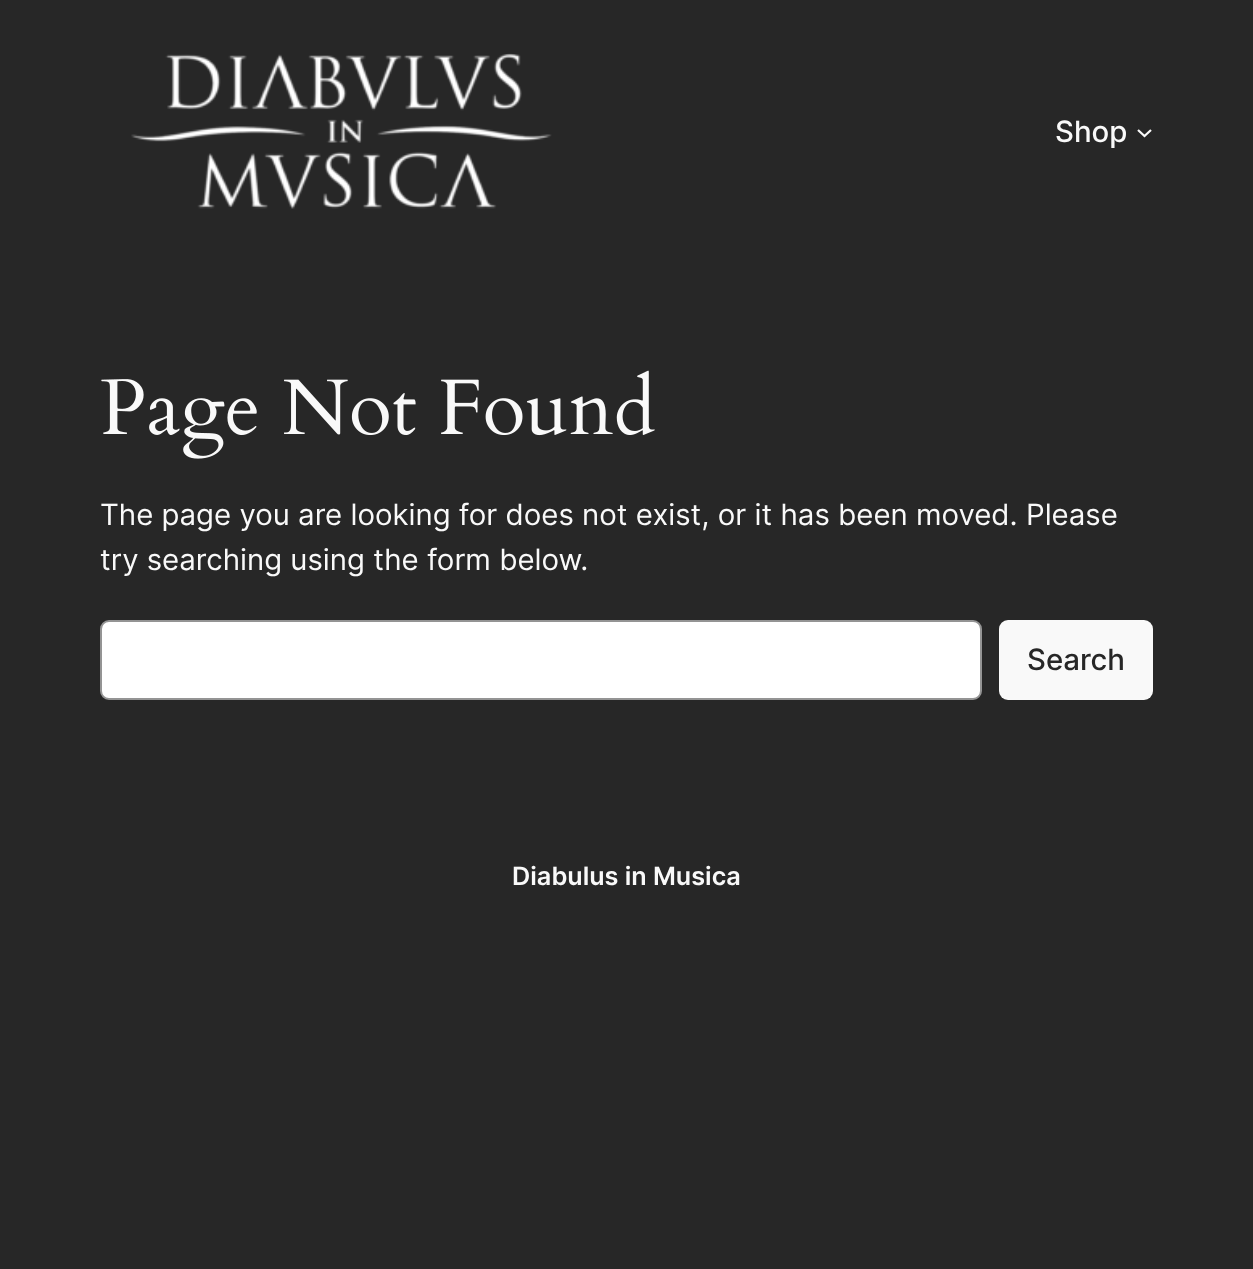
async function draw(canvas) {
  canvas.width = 1253
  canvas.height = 1269
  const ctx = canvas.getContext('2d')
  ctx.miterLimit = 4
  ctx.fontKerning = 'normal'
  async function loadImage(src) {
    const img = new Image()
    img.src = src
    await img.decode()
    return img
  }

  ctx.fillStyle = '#272727'
  ctx.fillRect(0, 0, 1253, 1269)
  ctx.drawImage(await loadImage('image0.png'), 131, 53, 421, 156)
  ctx.font = '500 29.4px Inter'
  ctx.fillStyle = '#f9f9f9'
  ctx.fillText('Shop', 1055, 142)
  ctx.beginPath()
  ctx.moveTo(1138, 130)
  ctx.lineTo(1144.5, 136)
  ctx.lineTo(1151, 130)
  ctx.strokeStyle = '#f9f9f9'
  ctx.lineWidth = 2.2
  ctx.stroke()
  ctx.drawImage(await loadImage('image1.png'), 101, 370, 554, 89)
  ctx.font = '29.4px Inter'
  ctx.fillText('The page you are looking for does not exist, or it has been moved. Please', 100, 525)
  ctx.fillText('try searching using the form below.', 100, 570)
  ctx.fillStyle = '#fff'
  ctx.beginPath()
  ctx.roundRect(101, 621, 880, 78, 8)
  ctx.fill()
  ctx.strokeStyle = '#949494'
  ctx.lineWidth = 2
  ctx.stroke()
  ctx.fillStyle = '#f9f9f9'
  ctx.beginPath()
  ctx.roundRect(999, 620, 154, 80, 9)
  ctx.fill()
  ctx.font = '500 29.4px Inter'
  ctx.fillStyle = '#272727'
  ctx.fillText('Search', 1027, 670)
  ctx.font = '600 25.25px Inter'
  ctx.fillStyle = '#f9f9f9'
  ctx.fillText('Diabulus in Musica', 512, 885)
}

draw(document.querySelector('canvas'))
